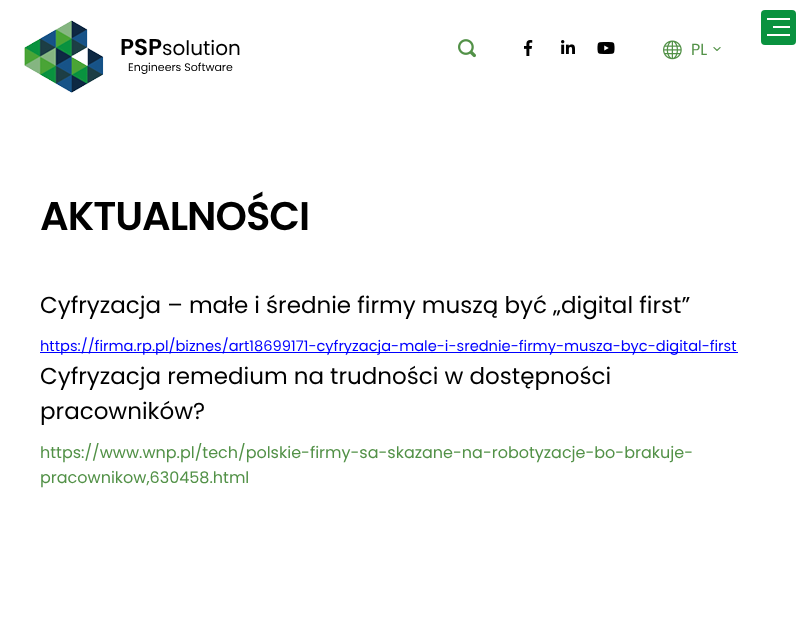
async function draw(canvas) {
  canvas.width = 806
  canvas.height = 641
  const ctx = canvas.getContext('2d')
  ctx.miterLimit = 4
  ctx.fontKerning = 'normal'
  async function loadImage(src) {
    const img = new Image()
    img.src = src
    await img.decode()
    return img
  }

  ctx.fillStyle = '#fff'
  ctx.fillRect(0, 0, 806, 641)
  ctx.drawImage(await loadImage('image0.png'), 24, 20, 80, 73)
  ctx.font = '600 23px Poppins'
  ctx.fillStyle = '#000'
  ctx.fillText('PSP', 120, 55)
  ctx.font = '20px Poppins'
  ctx.fillText('solution', 162, 55)
  ctx.font = '11px Poppins'
  ctx.fillText('Engineers Software', 128, 71)
  ctx.fillStyle = '#09923f'
  ctx.beginPath()
  ctx.roundRect(761, 10, 35, 35, 4)
  ctx.fill()
  ctx.fillStyle = '#fff'
  ctx.fillRect(767, 18, 23, 2)
  ctx.fillRect(773, 26, 17, 2)
  ctx.fillRect(767, 34, 23, 2)
  ctx.drawImage(await loadImage('image1.png'), 458, 39, 18, 19)
  ctx.drawImage(await loadImage('image2.png'), 524, 40, 9, 16)
  ctx.drawImage(await loadImage('image3.png'), 561, 40, 14, 14)
  ctx.drawImage(await loadImage('image4.png'), 597, 42, 18, 12)
  ctx.drawImage(await loadImage('image5.png'), 663, 40, 19, 20)
  ctx.font = '16px Poppins'
  ctx.fillStyle = '#529147'
  ctx.fillText('PL', 691, 55)
  ctx.drawImage(await loadImage('image6.png'), 713, 47, 8, 4)
  ctx.letterSpacing = '-1px'
  ctx.font = '600 40px Poppins'
  ctx.fillStyle = '#000'
  ctx.fillText('AKTUALNOŚCI', 40, 230)
  ctx.letterSpacing = '0px'
  ctx.font = '23px Poppins'
  ctx.fillText('Cyfryzacja – małe i średnie firmy muszą być „digital first”', 40, 313)
  ctx.fillStyle = '#00f'
  ctx.fillRect(40, 352, 698, 1)
  ctx.font = '14.65px Poppins'
  ctx.fillText('https://firma.rp.pl/biznes/art18699171-cyfryzacja-male-i-srednie-firmy-musza-byc-digital-first', 40, 351)
  ctx.font = '23px Poppins'
  ctx.fillStyle = '#000'
  ctx.fillText('Cyfryzacja remedium na trudności w dostępności', 40, 384)
  ctx.fillText('pracowników?', 40, 419)
  ctx.font = '16px Poppins'
  ctx.fillStyle = '#529147'
  ctx.fillText('https://www.wnp.pl/tech/polskie-firmy-sa-skazane-na-robotyzacje-bo-brakuje-', 40, 458)
  ctx.fillText('pracownikow,630458.html', 40, 483)
}

draw(document.querySelector('canvas'))
